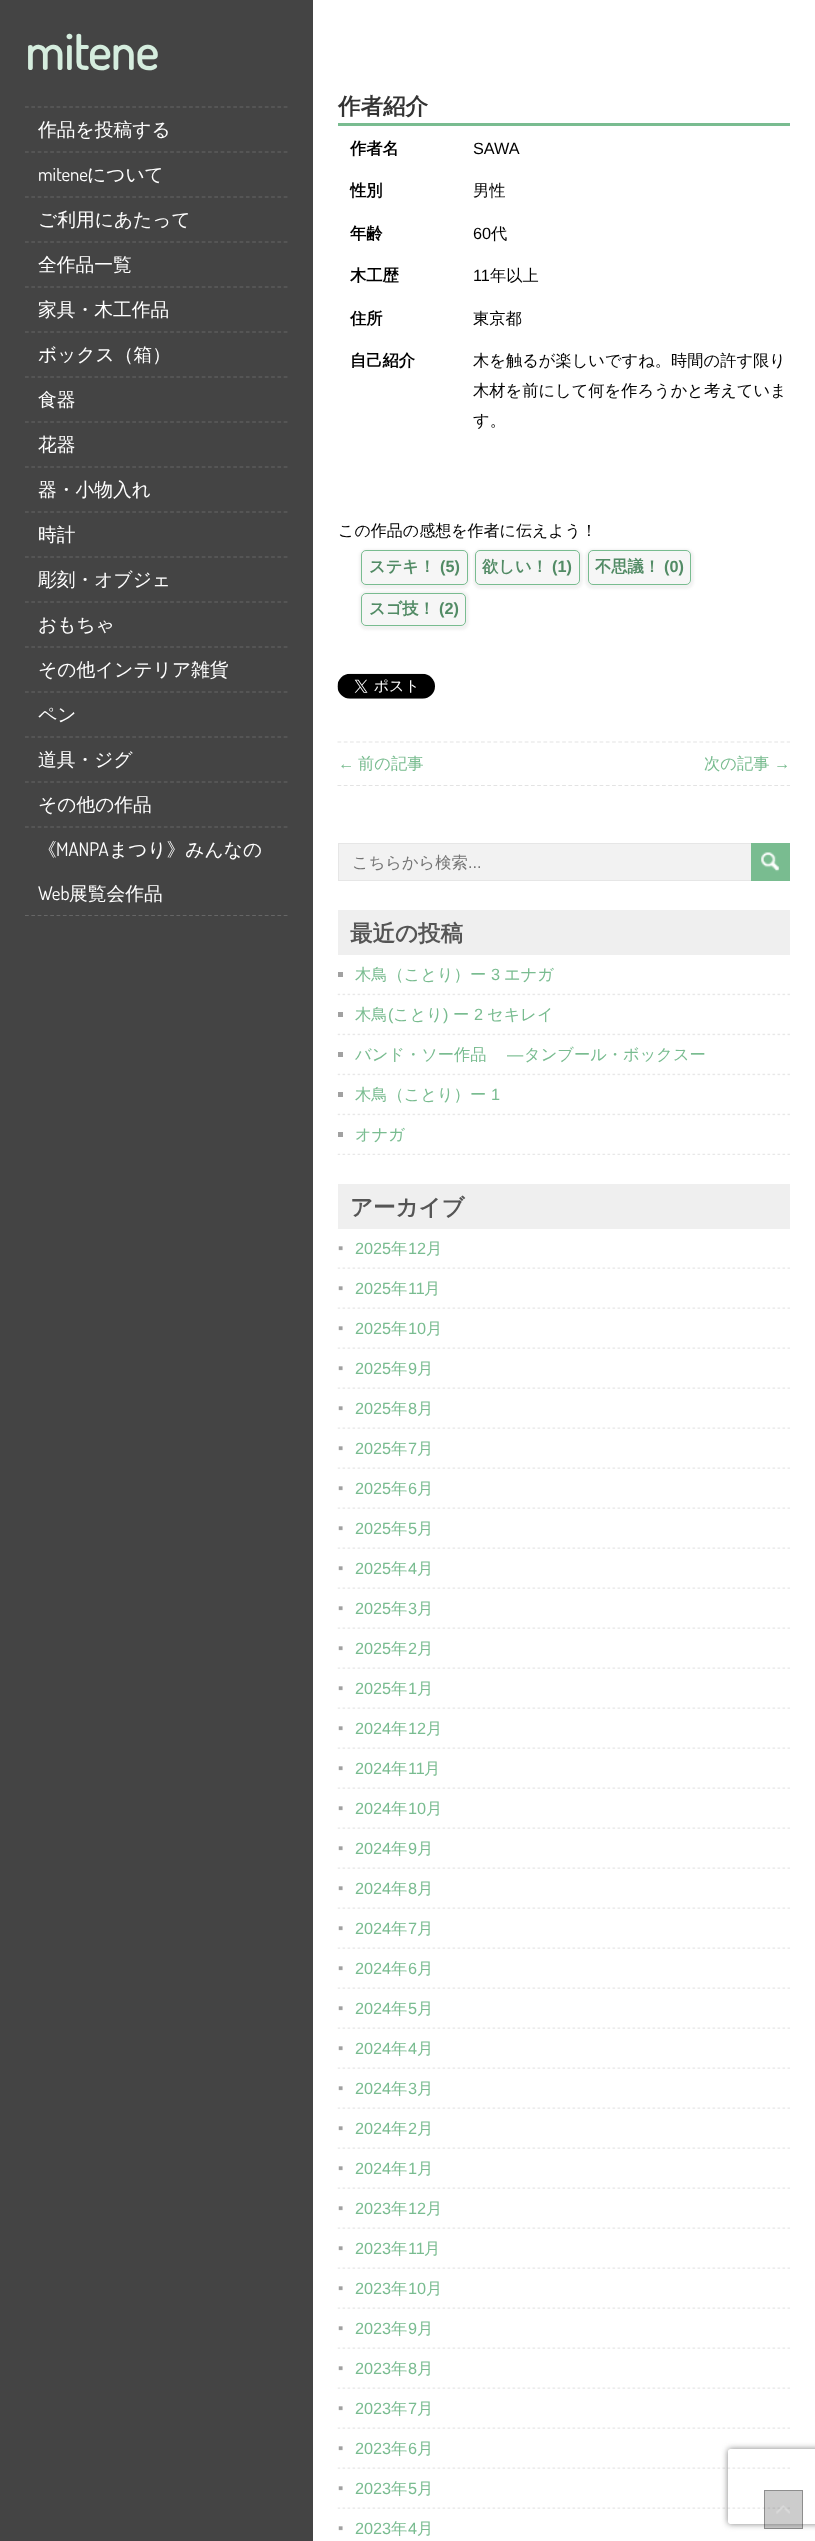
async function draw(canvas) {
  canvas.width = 815
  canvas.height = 2541
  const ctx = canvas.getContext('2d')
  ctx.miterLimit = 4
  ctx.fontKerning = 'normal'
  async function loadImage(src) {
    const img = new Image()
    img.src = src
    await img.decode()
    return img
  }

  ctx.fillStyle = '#fff'
  ctx.fillRect(0, 0, 815, 2541)
  ctx.fillStyle = '#444'
  ctx.fillRect(0, 0, 313, 2541)
  ctx.font = 'bold 50px Dosis'
  ctx.fillStyle = '#d5edde'
  ctx.fillText('mitene', 25, 70)
  ctx.beginPath()
  ctx.moveTo(25, 107)
  ctx.lineTo(287.5, 107)
  ctx.strokeStyle = '#666'
  ctx.lineWidth = 1.2
  ctx.setLineDash([3.75, 2.56])
  ctx.stroke()
  ctx.beginPath()
  ctx.moveTo(25, 152)
  ctx.lineTo(287.5, 152)
  ctx.stroke()
  ctx.font = '500 18.75px WenQuanYi Zen Hei'
  ctx.fillStyle = '#fff'
  ctx.fillText('作品を投稿する', 38, 136)
  ctx.beginPath()
  ctx.moveTo(25, 197)
  ctx.lineTo(287.5, 197)
  ctx.stroke()
  ctx.font = '18.75px Dosis'
  ctx.fillText('mitene', 38, 181)
  ctx.font = '500 18.75px WenQuanYi Zen Hei'
  ctx.fillText('について', 87, 181)
  ctx.beginPath()
  ctx.moveTo(25, 242)
  ctx.lineTo(287.5, 242)
  ctx.stroke()
  ctx.fillText('ご利用にあたって', 38, 226)
  ctx.beginPath()
  ctx.moveTo(25, 287)
  ctx.lineTo(287.5, 287)
  ctx.stroke()
  ctx.fillText('全作品一覧', 38, 271)
  ctx.beginPath()
  ctx.moveTo(25, 332)
  ctx.lineTo(287.5, 332)
  ctx.stroke()
  ctx.fillText('家具・木工作品', 38, 316)
  ctx.beginPath()
  ctx.moveTo(25, 377)
  ctx.lineTo(287.5, 377)
  ctx.stroke()
  ctx.fillText('ボックス（箱）', 38, 361)
  ctx.beginPath()
  ctx.moveTo(25, 422)
  ctx.lineTo(287.5, 422)
  ctx.stroke()
  ctx.fillText('食器', 38, 406)
  ctx.beginPath()
  ctx.moveTo(25, 467)
  ctx.lineTo(287.5, 467)
  ctx.stroke()
  ctx.fillText('花器', 38, 451)
  ctx.beginPath()
  ctx.moveTo(25, 512)
  ctx.lineTo(287.5, 512)
  ctx.stroke()
  ctx.fillText('器・小物入れ', 38, 496)
  ctx.beginPath()
  ctx.moveTo(25, 557)
  ctx.lineTo(287.5, 557)
  ctx.stroke()
  ctx.fillText('時計', 38, 541)
  ctx.beginPath()
  ctx.moveTo(25, 602)
  ctx.lineTo(287.5, 602)
  ctx.stroke()
  ctx.fillText('彫刻・オブジェ', 38, 586)
  ctx.beginPath()
  ctx.moveTo(25, 647)
  ctx.lineTo(287.5, 647)
  ctx.stroke()
  ctx.fillText('おもちゃ', 38, 631)
  ctx.beginPath()
  ctx.moveTo(25, 692)
  ctx.lineTo(287.5, 692)
  ctx.stroke()
  ctx.fillText('その他インテリア雑貨', 38, 676)
  ctx.beginPath()
  ctx.moveTo(25, 737)
  ctx.lineTo(287.5, 737)
  ctx.stroke()
  ctx.fillText('ペン', 38, 721)
  ctx.beginPath()
  ctx.moveTo(25, 782)
  ctx.lineTo(287.5, 782)
  ctx.stroke()
  ctx.fillText('道具・ジグ', 38, 766)
  ctx.beginPath()
  ctx.moveTo(25, 827)
  ctx.lineTo(287.5, 827)
  ctx.stroke()
  ctx.fillText('その他の作品', 38, 811)
  ctx.beginPath()
  ctx.moveTo(25, 915.5)
  ctx.lineTo(287.5, 915.5)
  ctx.stroke()
  ctx.fillText('《', 38, 856)
  ctx.font = '18.75px Dosis'
  ctx.fillText('MANPA', 56, 856)
  ctx.font = '500 18.75px WenQuanYi Zen Hei'
  ctx.fillText('まつり》みんなの', 109, 856)
  ctx.font = '18.75px Dosis'
  ctx.fillText('Web', 38, 900)
  ctx.font = '500 18.75px WenQuanYi Zen Hei'
  ctx.fillText('展覧会作品', 69, 900)
  ctx.fillStyle = '#79bc90'
  ctx.fillRect(338, 123, 452, 3)
  ctx.font = 'bold 22.5px WenQuanYi Zen Hei'
  ctx.fillStyle = '#333'
  ctx.fillText('作者紹介', 338, 114)
  ctx.font = 'bold 16.25px WenQuanYi Zen Hei'
  ctx.fillStyle = '#000'
  ctx.fillText('作者名', 350, 154)
  ctx.font = '16.25px Liberation Sans'
  ctx.fillText('SAWA', 473, 154)
  ctx.font = 'bold 16.25px WenQuanYi Zen Hei'
  ctx.fillText('性別', 350, 196)
  ctx.font = '500 16.25px WenQuanYi Zen Hei'
  ctx.fillText('男性', 473, 196)
  ctx.font = 'bold 16.25px WenQuanYi Zen Hei'
  ctx.fillText('年齢', 350, 239)
  ctx.font = '16.25px Liberation Sans'
  ctx.fillText('60', 473, 239)
  ctx.font = '500 16.25px WenQuanYi Zen Hei'
  ctx.fillText('代', 491, 239)
  ctx.font = 'bold 16.25px WenQuanYi Zen Hei'
  ctx.fillText('木工歴', 350, 281)
  ctx.font = '16.25px Liberation Sans'
  ctx.fillText('11', 473, 281)
  ctx.font = '500 16.25px WenQuanYi Zen Hei'
  ctx.fillText('年以上', 490, 281)
  ctx.font = 'bold 16.25px WenQuanYi Zen Hei'
  ctx.fillText('住所', 350, 324)
  ctx.font = '500 16.25px WenQuanYi Zen Hei'
  ctx.fillText('東京都', 473, 324)
  ctx.font = 'bold 16.25px WenQuanYi Zen Hei'
  ctx.fillText('自己紹介', 350, 366)
  ctx.font = '500 16.25px WenQuanYi Zen Hei'
  ctx.fillText('木を触るが楽しいですね。時間の許す限り', 473, 366)
  ctx.fillText('木材を前にして何を作ろうかと考えていま', 473, 396)
  ctx.fillText('す。', 473, 426)
  ctx.font = '500 16px WenQuanYi Zen Hei'
  ctx.fillText('この作品の感想を作者に伝えよう！', 338, 536)
  ctx.fillStyle = '#e9e9e999'
  ctx.filter = 'blur(1px)'
  ctx.beginPath()
  ctx.roundRect(359, 549, 111, 40, 8)
  ctx.fill()
  ctx.filter = 'none'
  ctx.fillStyle = '#f6f6f6'
  ctx.beginPath()
  ctx.roundRect(361.5, 550.5, 106, 34, 4.5)
  ctx.fill()
  ctx.strokeStyle = '#79bc90'
  ctx.lineWidth = 1
  ctx.setLineDash([])
  ctx.stroke()
  ctx.font = 'bold 16.25px WenQuanYi Zen Hei'
  ctx.fillStyle = '#528b65'
  ctx.fillText('ステキ！', 369, 572)
  ctx.font = 'bold 16.25px Liberation Sans'
  ctx.fillText('(5)', 440, 572)
  ctx.fillStyle = '#e9e9e999'
  ctx.filter = 'blur(1px)'
  ctx.beginPath()
  ctx.roundRect(473, 549, 110, 40, 8)
  ctx.fill()
  ctx.filter = 'none'
  ctx.fillStyle = '#f6f6f6'
  ctx.beginPath()
  ctx.roundRect(475.5, 550.5, 104, 34, 4.5)
  ctx.fill()
  ctx.stroke()
  ctx.font = 'bold 16.25px WenQuanYi Zen Hei'
  ctx.fillStyle = '#528b65'
  ctx.fillText('欲しい！', 482, 572)
  ctx.font = 'bold 16.25px Liberation Sans'
  ctx.fillText('(1)', 552, 572)
  ctx.fillStyle = '#e9e9e999'
  ctx.filter = 'blur(1px)'
  ctx.beginPath()
  ctx.roundRect(585, 549, 109, 40, 8)
  ctx.fill()
  ctx.filter = 'none'
  ctx.fillStyle = '#f6f6f6'
  ctx.beginPath()
  ctx.roundRect(588.5, 550.5, 102, 34, 4.5)
  ctx.fill()
  ctx.stroke()
  ctx.font = 'bold 16.25px WenQuanYi Zen Hei'
  ctx.fillStyle = '#528b65'
  ctx.fillText('不思議！', 595, 572)
  ctx.font = 'bold 16.25px Liberation Sans'
  ctx.fillText('(0)', 664, 572)
  ctx.fillStyle = '#e9e9e999'
  ctx.filter = 'blur(1px)'
  ctx.beginPath()
  ctx.roundRect(359, 591, 110, 39, 8)
  ctx.fill()
  ctx.filter = 'none'
  ctx.fillStyle = '#f6f6f6'
  ctx.beginPath()
  ctx.roundRect(361.5, 593.5, 104, 32, 4.5)
  ctx.fill()
  ctx.stroke()
  ctx.font = 'bold 16.25px WenQuanYi Zen Hei'
  ctx.fillStyle = '#528b65'
  ctx.fillText('スゴ技！', 369, 614)
  ctx.font = 'bold 16.25px Liberation Sans'
  ctx.fillText('(2)', 439, 614)
  ctx.drawImage(await loadImage('image0.png'), 337, 673, 98, 26)
  ctx.beginPath()
  ctx.moveTo(337.5, 742)
  ctx.lineTo(790, 742)
  ctx.strokeStyle = '#e3e3e3'
  ctx.lineWidth = 1.2
  ctx.setLineDash([3.75, 2.49])
  ctx.stroke()
  ctx.beginPath()
  ctx.moveTo(337.5, 785.5)
  ctx.lineTo(790, 785.5)
  ctx.stroke()
  ctx.font = '16.25px Liberation Sans'
  ctx.fillStyle = '#79bc90'
  ctx.fillText('←', 338, 769)
  ctx.font = '500 16.25px WenQuanYi Zen Hei'
  ctx.fillText('前の記事', 358, 769)
  ctx.fillText('次の記事', 704, 769)
  ctx.font = '16.25px Liberation Sans'
  ctx.fillText('→', 774, 769)
  ctx.fillStyle = '#f2f2f2'
  ctx.fillRect(339, 844, 412, 36)
  ctx.strokeStyle = '#e6e6e6'
  ctx.lineWidth = 1
  ctx.setLineDash([])
  ctx.strokeRect(338.5, 843.5, 449, 37)
  ctx.font = '500 16.25px WenQuanYi Zen Hei'
  ctx.fillStyle = '#757575'
  ctx.fillText('こちらから検索', 352, 868)
  ctx.font = '16.25px Liberation Sans'
  ctx.fillText('...', 468, 868)
  ctx.fillStyle = '#79bc90'
  ctx.fillRect(751, 843, 39, 38)
  ctx.drawImage(await loadImage('image1.png'), 761, 852, 19, 20)
  ctx.fillStyle = '#efefef'
  ctx.fillRect(338, 910, 452, 45)
  ctx.font = 'bold 22.5px WenQuanYi Zen Hei'
  ctx.fillStyle = '#555'
  ctx.fillText('最近の投稿', 350, 941)
  ctx.drawImage(await loadImage('image2.png'), 337, 993, 453, 162)
  ctx.fillStyle = '#a1a1a1'
  ctx.fillRect(338, 972, 5, 5)
  ctx.font = '500 16.25px WenQuanYi Zen Hei'
  ctx.fillStyle = '#79bc90'
  ctx.fillText('木鳥（ことり）ー', 355, 980)
  ctx.font = '16.25px Liberation Sans'
  ctx.fillText('3', 491, 980)
  ctx.font = '500 16.25px WenQuanYi Zen Hei'
  ctx.fillText('エナガ', 504, 980)
  ctx.fillStyle = '#a1a1a1'
  ctx.fillRect(338, 1012, 5, 5)
  ctx.fillStyle = '#79bc90'
  ctx.fillText('木鳥', 355, 1020)
  ctx.font = '16.25px Liberation Sans'
  ctx.fillText('(', 388, 1020)
  ctx.font = '500 16.25px WenQuanYi Zen Hei'
  ctx.fillText('ことり', 393, 1020)
  ctx.font = '16.25px Liberation Sans'
  ctx.fillText(')', 443, 1020)
  ctx.font = '500 16.25px WenQuanYi Zen Hei'
  ctx.fillText('ー', 453, 1020)
  ctx.font = '16.25px Liberation Sans'
  ctx.fillText('2', 474, 1020)
  ctx.font = '500 16.25px WenQuanYi Zen Hei'
  ctx.fillText('セキレイ', 487, 1020)
  ctx.fillStyle = '#a1a1a1'
  ctx.fillRect(338, 1052, 5, 5)
  ctx.fillStyle = '#79bc90'
  ctx.fillText('バンド・ソー作品', 355, 1060)
  ctx.font = '16.25px Liberation Sans'
  ctx.fillText('―', 507, 1060)
  ctx.font = '500 16.25px WenQuanYi Zen Hei'
  ctx.fillText('タンブール・ボックスー', 524, 1060)
  ctx.fillStyle = '#a1a1a1'
  ctx.fillRect(338, 1092, 5, 5)
  ctx.fillStyle = '#79bc90'
  ctx.fillText('木鳥（ことり）ー', 355, 1100)
  ctx.font = '16.25px Liberation Sans'
  ctx.fillText('1', 491, 1100)
  ctx.fillStyle = '#a1a1a1'
  ctx.fillRect(338, 1132, 5, 5)
  ctx.font = '500 16.25px WenQuanYi Zen Hei'
  ctx.fillStyle = '#79bc90'
  ctx.fillText('オナガ', 355, 1140)
  ctx.drawImage(await loadImage('image3.png'), 337, 1228, 453, 1281)
  ctx.fillStyle = '#efefef'
  ctx.fillRect(338, 1184, 452, 45)
  ctx.font = 'bold 22.5px WenQuanYi Zen Hei'
  ctx.fillStyle = '#555'
  ctx.fillText('アーカイブ', 350, 1215)
  ctx.drawImage(await loadImage('image4.png'), 338, 1246, 5, 5)
  ctx.font = '16.25px Liberation Sans'
  ctx.fillStyle = '#79bc90'
  ctx.fillText('2025', 355, 1254)
  ctx.font = '500 16.25px WenQuanYi Zen Hei'
  ctx.fillText('年', 391, 1254)
  ctx.font = '16.25px Liberation Sans'
  ctx.fillText('12', 408, 1254)
  ctx.font = '500 16.25px WenQuanYi Zen Hei'
  ctx.fillText('月', 426, 1254)
  ctx.drawImage(await loadImage('image4.png'), 338, 1286, 5, 5)
  ctx.font = '16.25px Liberation Sans'
  ctx.fillText('2025', 355, 1294)
  ctx.font = '500 16.25px WenQuanYi Zen Hei'
  ctx.fillText('年', 391, 1294)
  ctx.font = '16.25px Liberation Sans'
  ctx.fillText('11', 408, 1294)
  ctx.font = '500 16.25px WenQuanYi Zen Hei'
  ctx.fillText('月', 424, 1294)
  ctx.drawImage(await loadImage('image4.png'), 338, 1326, 5, 5)
  ctx.font = '16.25px Liberation Sans'
  ctx.fillText('2025', 355, 1334)
  ctx.font = '500 16.25px WenQuanYi Zen Hei'
  ctx.fillText('年', 391, 1334)
  ctx.font = '16.25px Liberation Sans'
  ctx.fillText('10', 408, 1334)
  ctx.font = '500 16.25px WenQuanYi Zen Hei'
  ctx.fillText('月', 426, 1334)
  ctx.drawImage(await loadImage('image4.png'), 338, 1366, 5, 5)
  ctx.font = '16.25px Liberation Sans'
  ctx.fillText('2025', 355, 1374)
  ctx.font = '500 16.25px WenQuanYi Zen Hei'
  ctx.fillText('年', 391, 1374)
  ctx.font = '16.25px Liberation Sans'
  ctx.fillText('9', 408, 1374)
  ctx.font = '500 16.25px WenQuanYi Zen Hei'
  ctx.fillText('月', 417, 1374)
  ctx.drawImage(await loadImage('image4.png'), 338, 1406, 5, 5)
  ctx.font = '16.25px Liberation Sans'
  ctx.fillText('2025', 355, 1414)
  ctx.font = '500 16.25px WenQuanYi Zen Hei'
  ctx.fillText('年', 391, 1414)
  ctx.font = '16.25px Liberation Sans'
  ctx.fillText('8', 408, 1414)
  ctx.font = '500 16.25px WenQuanYi Zen Hei'
  ctx.fillText('月', 417, 1414)
  ctx.drawImage(await loadImage('image4.png'), 338, 1446, 5, 5)
  ctx.font = '16.25px Liberation Sans'
  ctx.fillText('2025', 355, 1454)
  ctx.font = '500 16.25px WenQuanYi Zen Hei'
  ctx.fillText('年', 391, 1454)
  ctx.font = '16.25px Liberation Sans'
  ctx.fillText('7', 408, 1454)
  ctx.font = '500 16.25px WenQuanYi Zen Hei'
  ctx.fillText('月', 417, 1454)
  ctx.drawImage(await loadImage('image4.png'), 338, 1486, 5, 5)
  ctx.font = '16.25px Liberation Sans'
  ctx.fillText('2025', 355, 1494)
  ctx.font = '500 16.25px WenQuanYi Zen Hei'
  ctx.fillText('年', 391, 1494)
  ctx.font = '16.25px Liberation Sans'
  ctx.fillText('6', 408, 1494)
  ctx.font = '500 16.25px WenQuanYi Zen Hei'
  ctx.fillText('月', 417, 1494)
  ctx.drawImage(await loadImage('image4.png'), 338, 1526, 5, 5)
  ctx.font = '16.25px Liberation Sans'
  ctx.fillText('2025', 355, 1534)
  ctx.font = '500 16.25px WenQuanYi Zen Hei'
  ctx.fillText('年', 391, 1534)
  ctx.font = '16.25px Liberation Sans'
  ctx.fillText('5', 408, 1534)
  ctx.font = '500 16.25px WenQuanYi Zen Hei'
  ctx.fillText('月', 417, 1534)
  ctx.drawImage(await loadImage('image4.png'), 338, 1566, 5, 5)
  ctx.font = '16.25px Liberation Sans'
  ctx.fillText('2025', 355, 1574)
  ctx.font = '500 16.25px WenQuanYi Zen Hei'
  ctx.fillText('年', 391, 1574)
  ctx.font = '16.25px Liberation Sans'
  ctx.fillText('4', 408, 1574)
  ctx.font = '500 16.25px WenQuanYi Zen Hei'
  ctx.fillText('月', 417, 1574)
  ctx.drawImage(await loadImage('image4.png'), 338, 1606, 5, 5)
  ctx.font = '16.25px Liberation Sans'
  ctx.fillText('2025', 355, 1614)
  ctx.font = '500 16.25px WenQuanYi Zen Hei'
  ctx.fillText('年', 391, 1614)
  ctx.font = '16.25px Liberation Sans'
  ctx.fillText('3', 408, 1614)
  ctx.font = '500 16.25px WenQuanYi Zen Hei'
  ctx.fillText('月', 417, 1614)
  ctx.drawImage(await loadImage('image4.png'), 338, 1646, 5, 5)
  ctx.font = '16.25px Liberation Sans'
  ctx.fillText('2025', 355, 1654)
  ctx.font = '500 16.25px WenQuanYi Zen Hei'
  ctx.fillText('年', 391, 1654)
  ctx.font = '16.25px Liberation Sans'
  ctx.fillText('2', 408, 1654)
  ctx.font = '500 16.25px WenQuanYi Zen Hei'
  ctx.fillText('月', 417, 1654)
  ctx.drawImage(await loadImage('image4.png'), 338, 1686, 5, 5)
  ctx.font = '16.25px Liberation Sans'
  ctx.fillText('2025', 355, 1694)
  ctx.font = '500 16.25px WenQuanYi Zen Hei'
  ctx.fillText('年', 391, 1694)
  ctx.font = '16.25px Liberation Sans'
  ctx.fillText('1', 408, 1694)
  ctx.font = '500 16.25px WenQuanYi Zen Hei'
  ctx.fillText('月', 417, 1694)
  ctx.drawImage(await loadImage('image4.png'), 338, 1726, 5, 5)
  ctx.font = '16.25px Liberation Sans'
  ctx.fillText('2024', 355, 1734)
  ctx.font = '500 16.25px WenQuanYi Zen Hei'
  ctx.fillText('年', 391, 1734)
  ctx.font = '16.25px Liberation Sans'
  ctx.fillText('12', 408, 1734)
  ctx.font = '500 16.25px WenQuanYi Zen Hei'
  ctx.fillText('月', 426, 1734)
  ctx.drawImage(await loadImage('image4.png'), 338, 1766, 5, 5)
  ctx.font = '16.25px Liberation Sans'
  ctx.fillText('2024', 355, 1774)
  ctx.font = '500 16.25px WenQuanYi Zen Hei'
  ctx.fillText('年', 391, 1774)
  ctx.font = '16.25px Liberation Sans'
  ctx.fillText('11', 408, 1774)
  ctx.font = '500 16.25px WenQuanYi Zen Hei'
  ctx.fillText('月', 424, 1774)
  ctx.drawImage(await loadImage('image4.png'), 338, 1806, 5, 5)
  ctx.font = '16.25px Liberation Sans'
  ctx.fillText('2024', 355, 1814)
  ctx.font = '500 16.25px WenQuanYi Zen Hei'
  ctx.fillText('年', 391, 1814)
  ctx.font = '16.25px Liberation Sans'
  ctx.fillText('10', 408, 1814)
  ctx.font = '500 16.25px WenQuanYi Zen Hei'
  ctx.fillText('月', 426, 1814)
  ctx.drawImage(await loadImage('image4.png'), 338, 1846, 5, 5)
  ctx.font = '16.25px Liberation Sans'
  ctx.fillText('2024', 355, 1854)
  ctx.font = '500 16.25px WenQuanYi Zen Hei'
  ctx.fillText('年', 391, 1854)
  ctx.font = '16.25px Liberation Sans'
  ctx.fillText('9', 408, 1854)
  ctx.font = '500 16.25px WenQuanYi Zen Hei'
  ctx.fillText('月', 417, 1854)
  ctx.drawImage(await loadImage('image4.png'), 338, 1886, 5, 5)
  ctx.font = '16.25px Liberation Sans'
  ctx.fillText('2024', 355, 1894)
  ctx.font = '500 16.25px WenQuanYi Zen Hei'
  ctx.fillText('年', 391, 1894)
  ctx.font = '16.25px Liberation Sans'
  ctx.fillText('8', 408, 1894)
  ctx.font = '500 16.25px WenQuanYi Zen Hei'
  ctx.fillText('月', 417, 1894)
  ctx.drawImage(await loadImage('image4.png'), 338, 1926, 5, 5)
  ctx.font = '16.25px Liberation Sans'
  ctx.fillText('2024', 355, 1934)
  ctx.font = '500 16.25px WenQuanYi Zen Hei'
  ctx.fillText('年', 391, 1934)
  ctx.font = '16.25px Liberation Sans'
  ctx.fillText('7', 408, 1934)
  ctx.font = '500 16.25px WenQuanYi Zen Hei'
  ctx.fillText('月', 417, 1934)
  ctx.drawImage(await loadImage('image4.png'), 338, 1966, 5, 5)
  ctx.font = '16.25px Liberation Sans'
  ctx.fillText('2024', 355, 1974)
  ctx.font = '500 16.25px WenQuanYi Zen Hei'
  ctx.fillText('年', 391, 1974)
  ctx.font = '16.25px Liberation Sans'
  ctx.fillText('6', 408, 1974)
  ctx.font = '500 16.25px WenQuanYi Zen Hei'
  ctx.fillText('月', 417, 1974)
  ctx.drawImage(await loadImage('image4.png'), 338, 2006, 5, 5)
  ctx.font = '16.25px Liberation Sans'
  ctx.fillText('2024', 355, 2014)
  ctx.font = '500 16.25px WenQuanYi Zen Hei'
  ctx.fillText('年', 391, 2014)
  ctx.font = '16.25px Liberation Sans'
  ctx.fillText('5', 408, 2014)
  ctx.font = '500 16.25px WenQuanYi Zen Hei'
  ctx.fillText('月', 417, 2014)
  ctx.drawImage(await loadImage('image4.png'), 338, 2046, 5, 5)
  ctx.font = '16.25px Liberation Sans'
  ctx.fillText('2024', 355, 2054)
  ctx.font = '500 16.25px WenQuanYi Zen Hei'
  ctx.fillText('年', 391, 2054)
  ctx.font = '16.25px Liberation Sans'
  ctx.fillText('4', 408, 2054)
  ctx.font = '500 16.25px WenQuanYi Zen Hei'
  ctx.fillText('月', 417, 2054)
  ctx.drawImage(await loadImage('image4.png'), 338, 2086, 5, 5)
  ctx.font = '16.25px Liberation Sans'
  ctx.fillText('2024', 355, 2094)
  ctx.font = '500 16.25px WenQuanYi Zen Hei'
  ctx.fillText('年', 391, 2094)
  ctx.font = '16.25px Liberation Sans'
  ctx.fillText('3', 408, 2094)
  ctx.font = '500 16.25px WenQuanYi Zen Hei'
  ctx.fillText('月', 417, 2094)
  ctx.drawImage(await loadImage('image4.png'), 338, 2126, 5, 5)
  ctx.font = '16.25px Liberation Sans'
  ctx.fillText('2024', 355, 2134)
  ctx.font = '500 16.25px WenQuanYi Zen Hei'
  ctx.fillText('年', 391, 2134)
  ctx.font = '16.25px Liberation Sans'
  ctx.fillText('2', 408, 2134)
  ctx.font = '500 16.25px WenQuanYi Zen Hei'
  ctx.fillText('月', 417, 2134)
  ctx.drawImage(await loadImage('image4.png'), 338, 2166, 5, 5)
  ctx.font = '16.25px Liberation Sans'
  ctx.fillText('2024', 355, 2174)
  ctx.font = '500 16.25px WenQuanYi Zen Hei'
  ctx.fillText('年', 391, 2174)
  ctx.font = '16.25px Liberation Sans'
  ctx.fillText('1', 408, 2174)
  ctx.font = '500 16.25px WenQuanYi Zen Hei'
  ctx.fillText('月', 417, 2174)
  ctx.drawImage(await loadImage('image4.png'), 338, 2206, 5, 5)
  ctx.font = '16.25px Liberation Sans'
  ctx.fillText('2023', 355, 2214)
  ctx.font = '500 16.25px WenQuanYi Zen Hei'
  ctx.fillText('年', 391, 2214)
  ctx.font = '16.25px Liberation Sans'
  ctx.fillText('12', 408, 2214)
  ctx.font = '500 16.25px WenQuanYi Zen Hei'
  ctx.fillText('月', 426, 2214)
  ctx.drawImage(await loadImage('image4.png'), 338, 2246, 5, 5)
  ctx.font = '16.25px Liberation Sans'
  ctx.fillText('2023', 355, 2254)
  ctx.font = '500 16.25px WenQuanYi Zen Hei'
  ctx.fillText('年', 391, 2254)
  ctx.font = '16.25px Liberation Sans'
  ctx.fillText('11', 408, 2254)
  ctx.font = '500 16.25px WenQuanYi Zen Hei'
  ctx.fillText('月', 424, 2254)
  ctx.drawImage(await loadImage('image4.png'), 338, 2286, 5, 5)
  ctx.font = '16.25px Liberation Sans'
  ctx.fillText('2023', 355, 2294)
  ctx.font = '500 16.25px WenQuanYi Zen Hei'
  ctx.fillText('年', 391, 2294)
  ctx.font = '16.25px Liberation Sans'
  ctx.fillText('10', 408, 2294)
  ctx.font = '500 16.25px WenQuanYi Zen Hei'
  ctx.fillText('月', 426, 2294)
  ctx.drawImage(await loadImage('image4.png'), 338, 2326, 5, 5)
  ctx.font = '16.25px Liberation Sans'
  ctx.fillText('2023', 355, 2334)
  ctx.font = '500 16.25px WenQuanYi Zen Hei'
  ctx.fillText('年', 391, 2334)
  ctx.font = '16.25px Liberation Sans'
  ctx.fillText('9', 408, 2334)
  ctx.font = '500 16.25px WenQuanYi Zen Hei'
  ctx.fillText('月', 417, 2334)
  ctx.drawImage(await loadImage('image4.png'), 338, 2366, 5, 5)
  ctx.font = '16.25px Liberation Sans'
  ctx.fillText('2023', 355, 2374)
  ctx.font = '500 16.25px WenQuanYi Zen Hei'
  ctx.fillText('年', 391, 2374)
  ctx.font = '16.25px Liberation Sans'
  ctx.fillText('8', 408, 2374)
  ctx.font = '500 16.25px WenQuanYi Zen Hei'
  ctx.fillText('月', 417, 2374)
  ctx.drawImage(await loadImage('image4.png'), 338, 2406, 5, 5)
  ctx.font = '16.25px Liberation Sans'
  ctx.fillText('2023', 355, 2414)
  ctx.font = '500 16.25px WenQuanYi Zen Hei'
  ctx.fillText('年', 391, 2414)
  ctx.font = '16.25px Liberation Sans'
  ctx.fillText('7', 408, 2414)
  ctx.font = '500 16.25px WenQuanYi Zen Hei'
  ctx.fillText('月', 417, 2414)
  ctx.drawImage(await loadImage('image4.png'), 338, 2446, 5, 5)
  ctx.font = '16.25px Liberation Sans'
  ctx.fillText('2023', 355, 2454)
  ctx.font = '500 16.25px WenQuanYi Zen Hei'
  ctx.fillText('年', 391, 2454)
  ctx.font = '16.25px Liberation Sans'
  ctx.fillText('6', 408, 2454)
  ctx.font = '500 16.25px WenQuanYi Zen Hei'
  ctx.fillText('月', 417, 2454)
  ctx.drawImage(await loadImage('image4.png'), 338, 2486, 5, 5)
  ctx.font = '16.25px Liberation Sans'
  ctx.fillText('2023', 355, 2494)
  ctx.font = '500 16.25px WenQuanYi Zen Hei'
  ctx.fillText('年', 391, 2494)
  ctx.font = '16.25px Liberation Sans'
  ctx.fillText('5', 408, 2494)
  ctx.font = '500 16.25px WenQuanYi Zen Hei'
  ctx.fillText('月', 417, 2494)
  ctx.drawImage(await loadImage('image4.png'), 338, 2526, 5, 5)
  ctx.font = '16.25px Liberation Sans'
  ctx.fillText('2023', 355, 2534)
  ctx.font = '500 16.25px WenQuanYi Zen Hei'
  ctx.fillText('年', 391, 2534)
  ctx.font = '16.25px Liberation Sans'
  ctx.fillText('4', 408, 2534)
  ctx.font = '500 16.25px WenQuanYi Zen Hei'
  ctx.fillText('月', 417, 2534)
  ctx.save()
  ctx.beginPath()
  ctx.moveTo(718, 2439)
  ctx.lineTo(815, 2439)
  ctx.lineTo(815, 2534)
  ctx.lineTo(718, 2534)
  ctx.closePath()
  ctx.moveTo(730.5, 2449)
  ctx.lineTo(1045.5, 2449)
  ctx.bezierCurveTo(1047, 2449, 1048, 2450, 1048, 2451.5)
  ctx.lineTo(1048, 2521.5)
  ctx.bezierCurveTo(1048, 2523, 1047, 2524, 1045.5, 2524)
  ctx.lineTo(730.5, 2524)
  ctx.bezierCurveTo(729, 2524, 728, 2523, 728, 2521.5)
  ctx.lineTo(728, 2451.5)
  ctx.bezierCurveTo(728, 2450, 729, 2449, 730.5, 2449)
  ctx.closePath()
  ctx.clip('evenodd')
  ctx.fillStyle = '#808080'
  ctx.filter = 'blur(3px)'
  ctx.beginPath()
  ctx.roundRect(728, 2449, 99, 75, 2.5)
  ctx.fill()
  ctx.filter = 'none'
  ctx.restore()
  ctx.fillStyle = '#5555554d'
  ctx.fillRect(764, 2490, 39, 39)
  ctx.drawImage(await loadImage('image5.png'), 776, 2505, 14, 9)
  ctx.strokeStyle = '#0000004d'
  ctx.strokeRect(764.5, 2490.5, 38, 38)
}

draw(document.querySelector('canvas'))
